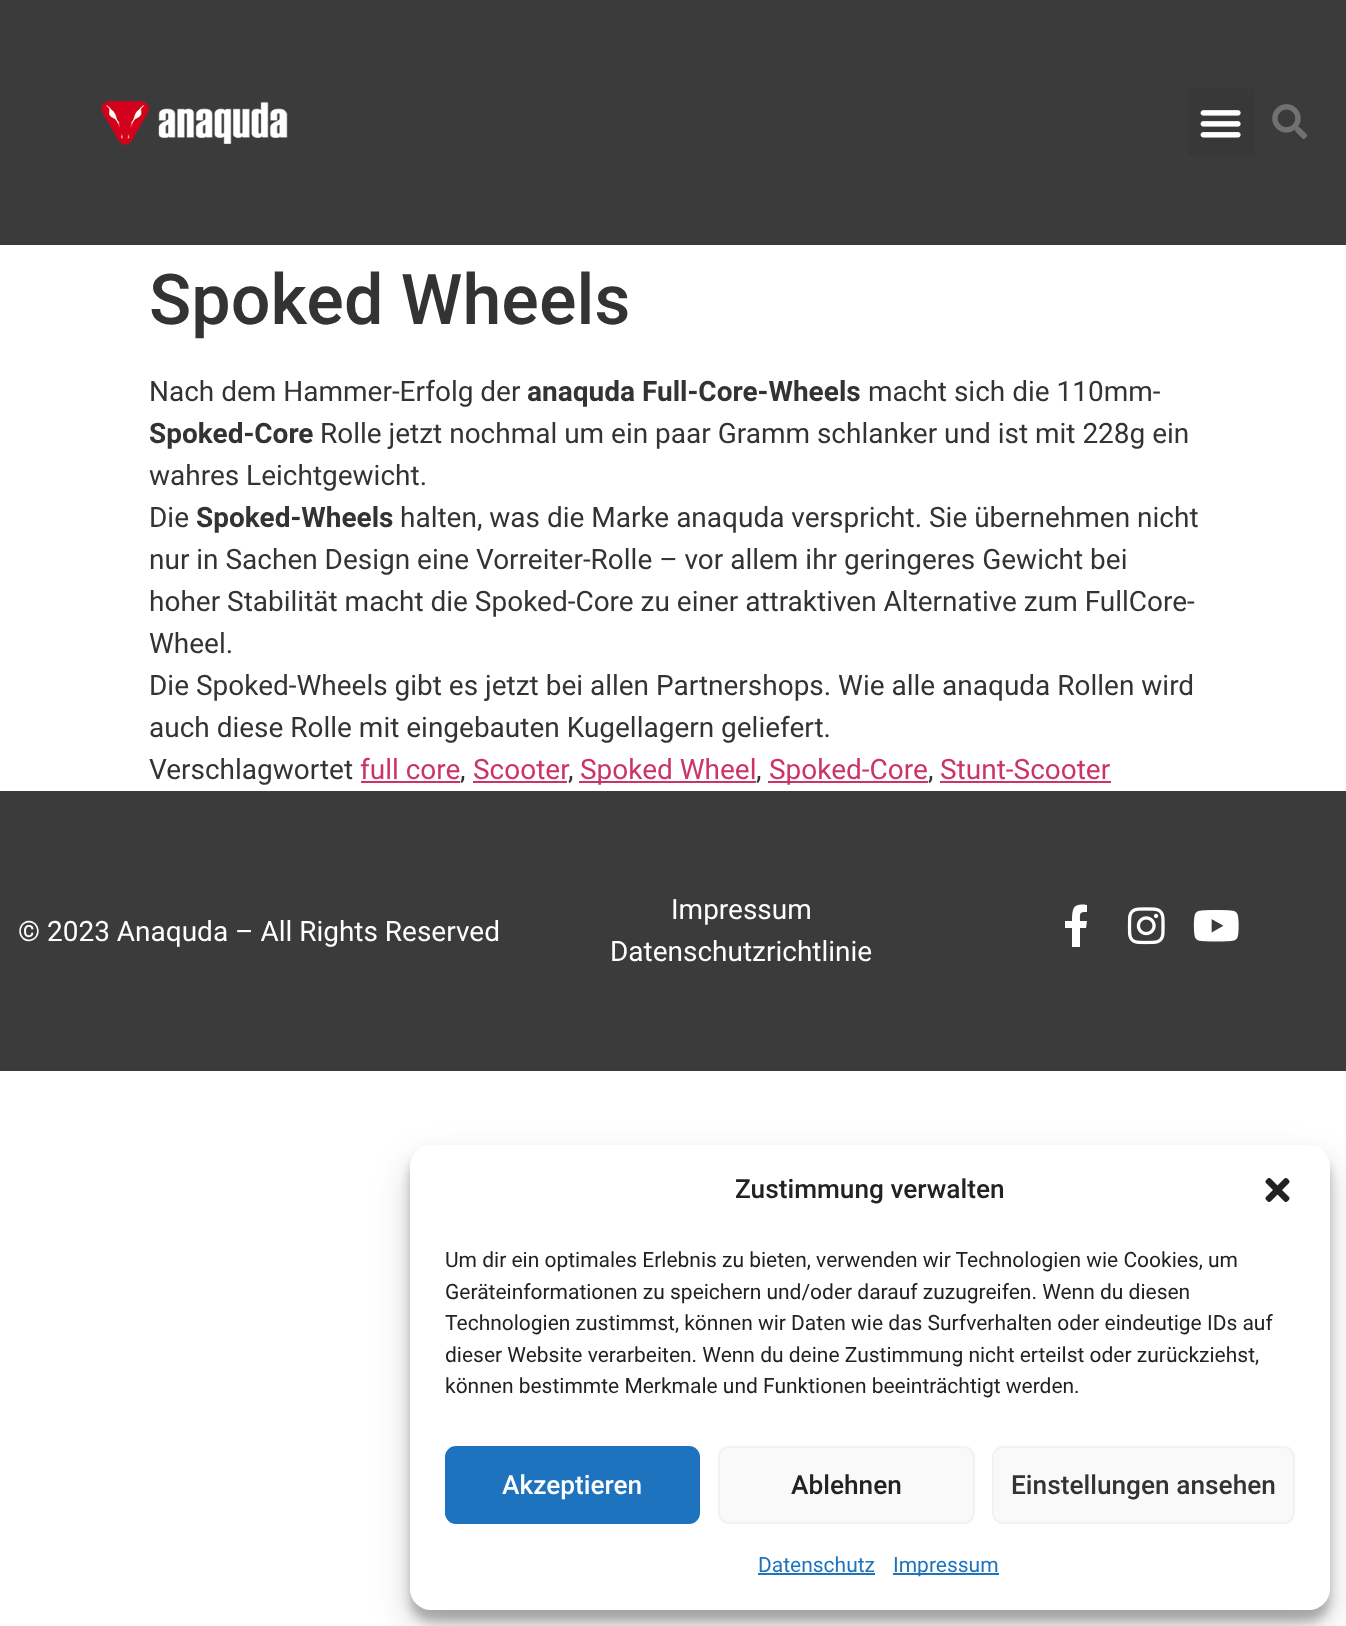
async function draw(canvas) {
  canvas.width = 1346
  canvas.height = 1626
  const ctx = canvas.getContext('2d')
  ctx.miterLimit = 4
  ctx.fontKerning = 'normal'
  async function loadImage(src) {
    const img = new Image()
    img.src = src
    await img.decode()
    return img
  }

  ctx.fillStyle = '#fff'
  ctx.fillRect(0, 0, 1346, 1626)
  ctx.fillStyle = '#3b3b3b'
  ctx.fillRect(0, 0, 1346, 245)
  ctx.drawImage(await loadImage('image0.png'), 101, 101, 187, 44)
  ctx.fillStyle = '#383838'
  ctx.fillRect(1188, 89, 67, 67)
  ctx.drawImage(await loadImage('image1.png'), 1200, 110, 41, 28)
  ctx.drawImage(await loadImage('image2.png'), 1272, 104, 36, 35)
  ctx.font = '500 70px Roboto'
  ctx.fillStyle = '#333'
  ctx.fillText('Spoked Wheels', 149, 324)
  ctx.font = '28px Roboto'
  ctx.fillText('Nach dem Hammer-Erfolg der', 149, 401)
  ctx.font = 'bold 28px Roboto'
  ctx.fillText('anaquda Full-Core-Wheels', 527, 401)
  ctx.font = '28px Roboto'
  ctx.fillText('macht sich die 110mm-', 868, 401)
  ctx.font = 'bold 28px Roboto'
  ctx.fillText('Spoked-Core', 149, 443)
  ctx.font = '28px Roboto'
  ctx.fillText('Rolle jetzt nochmal um ein paar Gramm schlanker und ist mit 228g ein', 320, 443)
  ctx.fillText('wahres Leichtgewicht.', 149, 485)
  ctx.fillText('Die', 149, 527)
  ctx.font = 'bold 28px Roboto'
  ctx.fillText('Spoked-Wheels', 196, 527)
  ctx.font = '28px Roboto'
  ctx.fillText('halten, was die Marke anaquda verspricht. Sie übernehmen nicht', 400, 527)
  ctx.fillText('nur in Sachen Design eine Vorreiter-Rolle – vor allem ihr geringeres Gewicht bei', 149, 569)
  ctx.fillText('hoher Stabilität macht die Spoked-Core zu einer attraktiven Alternative zum FullCore-', 149, 611)
  ctx.fillText('Wheel.', 149, 653)
  ctx.fillText('Die Spoked-Wheels gibt es jetzt bei allen Partnershops. Wie alle anaquda Rollen wird', 149, 695)
  ctx.fillText('auch diese Rolle mit eingebauten Kugellagern geliefert.', 149, 737)
  ctx.fillText('Verschlagwortet', 149, 779)
  ctx.fillStyle = '#c36'
  ctx.fillText('full core', 360, 779)
  ctx.fillStyle = '#333'
  ctx.fillText(',', 460, 779)
  ctx.fillStyle = '#c36'
  ctx.fillRect(361, 781, 99, 2)
  ctx.fillText('Scooter', 473, 779)
  ctx.fillStyle = '#333'
  ctx.fillText(',', 568, 779)
  ctx.fillStyle = '#c36'
  ctx.fillRect(473, 781, 94, 2)
  ctx.fillRect(579, 781, 177, 2)
  ctx.fillText('Spoked Wheel', 580, 779)
  ctx.fillStyle = '#333'
  ctx.fillText(',', 756, 779)
  ctx.fillStyle = '#c36'
  ctx.fillRect(768, 781, 160, 2)
  ctx.fillText('Spoked-Core', 769, 779)
  ctx.fillStyle = '#333'
  ctx.fillText(',', 928, 779)
  ctx.fillStyle = '#c36'
  ctx.fillRect(940, 781, 171, 2)
  ctx.fillText('Stunt-Scooter', 940, 779)
  ctx.fillStyle = '#3b3b3b'
  ctx.fillRect(0, 791, 1346, 280)
  ctx.fillStyle = '#fff'
  ctx.fillText('©', 18, 941)
  ctx.fillText('2023 Anaquda – All Rights Reserved', 47, 941)
  ctx.fillText('Impressum', 671, 919)
  ctx.fillText('Datenschutzrichtlinie', 610, 961)
  ctx.beginPath()
  ctx.moveTo(1086, 928)
  ctx.lineTo(1080, 928)
  ctx.lineTo(1080, 947)
  ctx.lineTo(1072, 947)
  ctx.lineTo(1072, 928)
  ctx.lineTo(1065, 928)
  ctx.lineTo(1065, 921)
  ctx.lineTo(1072, 921)
  ctx.bezierCurveTo(1072, 907, 1074, 903, 1087, 905)
  ctx.lineTo(1087, 912)
  ctx.bezierCurveTo(1079, 912, 1080, 913, 1080, 921)
  ctx.lineTo(1087, 921)
  ctx.closePath()
  ctx.fill()
  ctx.drawImage(await loadImage('image3.png'), 1127, 907, 38, 38)
  ctx.drawImage(await loadImage('image4.png'), 1193, 910, 46, 32)
  ctx.fillStyle = '#0000003b'
  ctx.filter = 'blur(5px)'
  ctx.beginPath()
  ctx.roundRect(410, 1155, 920, 466, 21)
  ctx.fill()
  ctx.filter = 'none'
  ctx.fillStyle = '#00000030'
  ctx.filter = 'blur(17.5px)'
  ctx.beginPath()
  ctx.roundRect(410, 1162, 920, 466, 21)
  ctx.fill()
  ctx.filter = 'none'
  ctx.fillStyle = '#fff'
  ctx.beginPath()
  ctx.roundRect(410, 1145, 920, 465, 21)
  ctx.fill()
  ctx.font = '500 26.25px Roboto'
  ctx.fillStyle = '#222'
  ctx.fillText('Zustimmung verwalten', 735, 1198)
  ctx.drawImage(await loadImage('image5.png'), 1265, 1178, 25, 24)
  ctx.font = '21px Roboto'
  ctx.fillText('Um dir ein optimales Erlebnis zu bieten, verwenden wir Technologien wie Cookies, um', 445, 1267)
  ctx.fillText('Geräteinformationen zu speichern und/oder darauf zuzugreifen. Wenn du diesen', 445, 1299)
  ctx.fillText('Technologien zustimmst, können wir Daten wie das Surfverhalten oder eindeutige IDs auf', 445, 1330)
  ctx.fillText('dieser Website verarbeiten. Wenn du deine Zustimmung nicht erteilst oder zurückziehst,', 445, 1362)
  ctx.fillText('können bestimmte Merkmale und Funktionen beeinträchtigt werden.', 445, 1393)
  ctx.fillStyle = '#1e73be'
  ctx.beginPath()
  ctx.roundRect(446, 1447, 253, 76, 10)
  ctx.fill()
  ctx.strokeStyle = '#1e73be'
  ctx.lineWidth = 2
  ctx.stroke()
  ctx.font = '500 26.25px Roboto'
  ctx.fillStyle = '#fff'
  ctx.fillText('Akzeptieren', 502, 1494)
  ctx.fillStyle = '#f9f9f9'
  ctx.beginPath()
  ctx.roundRect(719, 1447, 255, 76, 10)
  ctx.fill()
  ctx.strokeStyle = '#f2f2f2'
  ctx.stroke()
  ctx.fillStyle = '#222'
  ctx.fillText('Ablehnen', 791, 1494)
  ctx.fillStyle = '#f9f9f9'
  ctx.beginPath()
  ctx.roundRect(993, 1447, 301, 76, 10)
  ctx.fill()
  ctx.stroke()
  ctx.fillStyle = '#333'
  ctx.fillText('Einstellungen ansehen', 1011, 1494)
  ctx.font = '21px Roboto'
  ctx.fillStyle = '#1e73be'
  ctx.fillText('Datenschutz', 758, 1572)
  ctx.fillRect(758, 1573, 117, 2)
  ctx.fillRect(893, 1573, 106, 2)
  ctx.fillText('Impressum', 893, 1572)
}

draw(document.querySelector('canvas'))
